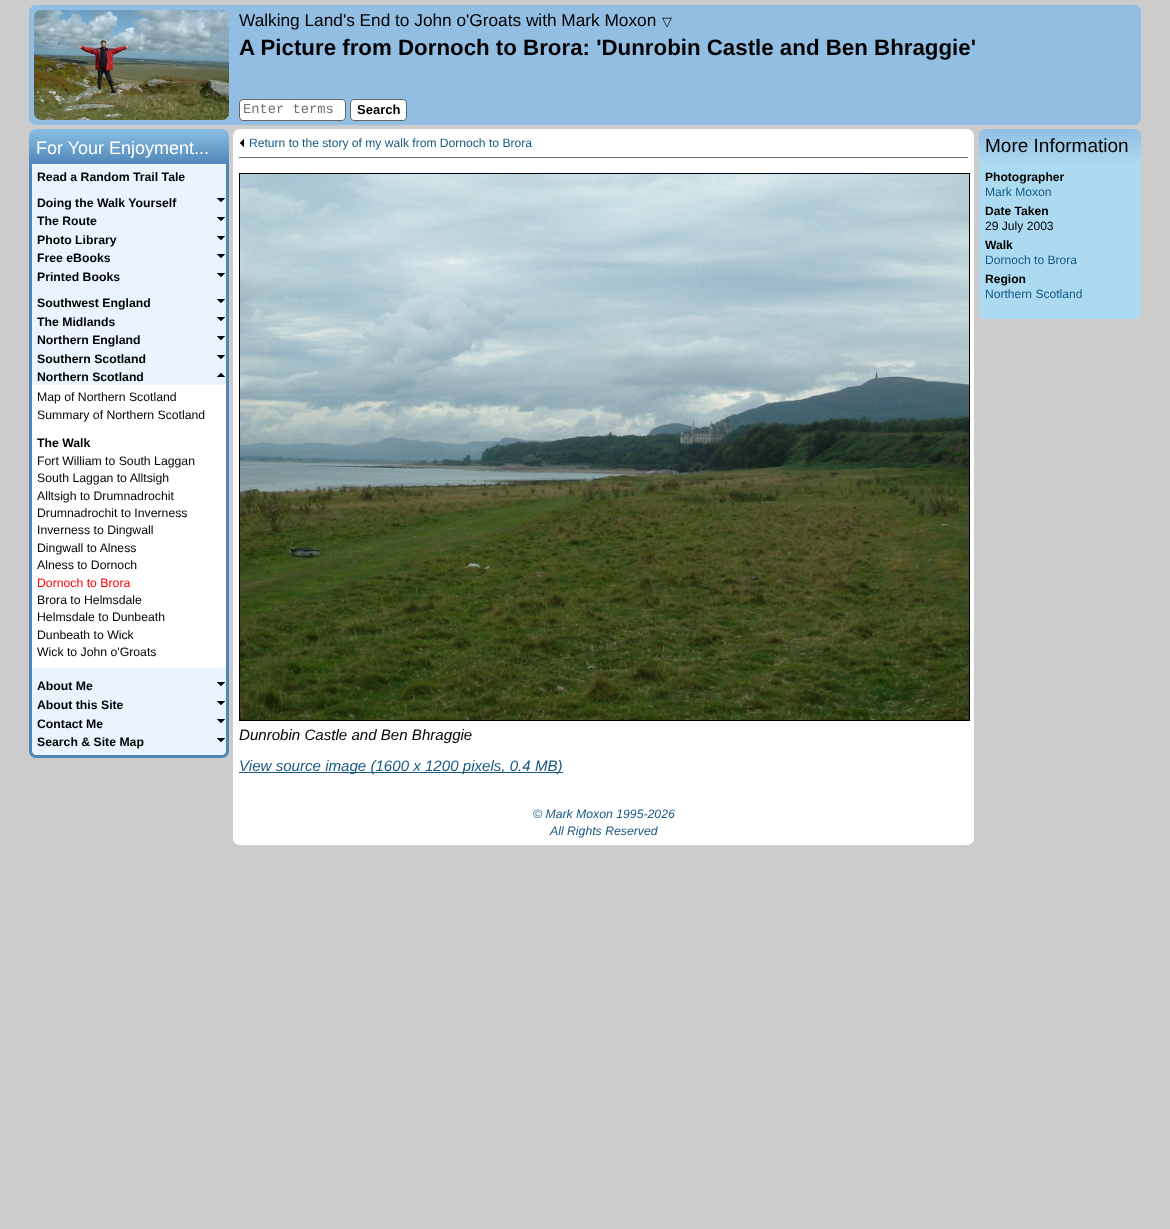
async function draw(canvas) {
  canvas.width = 1170
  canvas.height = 1229
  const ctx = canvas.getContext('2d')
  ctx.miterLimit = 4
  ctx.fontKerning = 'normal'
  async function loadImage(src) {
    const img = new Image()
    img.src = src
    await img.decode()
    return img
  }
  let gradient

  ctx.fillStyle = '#ccc'
  ctx.fillRect(0, 0, 1170, 1229)
  ctx.fillStyle = '#91bee2'
  ctx.beginPath()
  ctx.roundRect(29, 5, 1112, 120, 7)
  ctx.fill()
  ctx.drawImage(await loadImage('image0.png'), 34, 10, 195, 110)
  ctx.font = '17.25px Liberation Sans'
  ctx.fillStyle = '#000'
  ctx.fillText('Walking Land\'s End to John o\'Groats with Mark Moxon', 239, 26)
  ctx.font = '13px DejaVu Sans'
  ctx.fillText('▽', 662, 26)
  ctx.font = 'bold 22.3px Liberation Sans'
  ctx.fillText('A Picture from Dornoch to Brora: \'Dunrobin Castle and Ben Bhraggie\'', 239, 55)
  ctx.fillStyle = '#fff'
  ctx.beginPath()
  ctx.roundRect(239.5, 99.5, 106, 21, 3.5)
  ctx.fill()
  ctx.strokeStyle = '#666'
  ctx.stroke()
  ctx.font = '13.75px Liberation Mono'
  ctx.fillStyle = '#707070'
  ctx.fillText('Enter terms', 243, 113)
  ctx.fillStyle = '#fff'
  ctx.beginPath()
  ctx.roundRect(350.5, 99.5, 56, 21, 3.5)
  ctx.fill()
  ctx.stroke()
  ctx.font = 'bold 13px Liberation Sans'
  ctx.fillStyle = '#000'
  ctx.fillText('Search', 357, 114)
  gradient = ctx.createLinearGradient(129, 129, 129, 164)
  gradient.addColorStop(0, '#8bc0e5')
  gradient.addColorStop(1, '#5087b8')
  ctx.fillStyle = gradient
  ctx.beginPath()
  ctx.roundRect(29, 129, 200, 35, [7, 7, 0, 0])
  ctx.fill()
  ctx.font = '18px Liberation Sans'
  ctx.fillStyle = '#fff'
  ctx.fillText('For Your Enjoyment...', 36, 154)
  ctx.fillStyle = '#e9f4ff'
  ctx.beginPath()
  ctx.roundRect(29, 164, 200, 594, [0, 0, 7, 7])
  ctx.fill()
  ctx.fillStyle = '#5087b8'
  ctx.beginPath()
  ctx.moveTo(29, 164)
  ctx.lineTo(229, 164)
  ctx.lineTo(229, 751)
  ctx.bezierCurveTo(229, 755, 226, 758, 222, 758)
  ctx.lineTo(36, 758)
  ctx.bezierCurveTo(32, 758, 29, 755, 29, 751)
  ctx.closePath()
  ctx.moveTo(32, 164)
  ctx.lineTo(226, 164)
  ctx.lineTo(226, 751)
  ctx.bezierCurveTo(226, 753, 224, 755, 222, 755)
  ctx.lineTo(36, 755)
  ctx.bezierCurveTo(34, 755, 32, 753, 32, 751)
  ctx.closePath()
  ctx.fill('evenodd')
  ctx.font = 'bold 12.25px Liberation Sans'
  ctx.fillStyle = '#000'
  ctx.fillText('Read a Random Trail Tale', 37, 181)
  ctx.drawImage(await loadImage('image1.png'), 217, 198, 8, 4)
  ctx.fillText('Doing the Walk Yourself', 37, 207)
  ctx.drawImage(await loadImage('image1.png'), 217, 217, 8, 4)
  ctx.fillText('The Route', 37, 225)
  ctx.drawImage(await loadImage('image1.png'), 217, 236, 8, 4)
  ctx.fillText('Photo Library', 37, 244)
  ctx.drawImage(await loadImage('image1.png'), 217, 254, 8, 4)
  ctx.fillText('Free eBooks', 37, 262)
  ctx.drawImage(await loadImage('image1.png'), 217, 273, 8, 4)
  ctx.fillText('Printed Books', 37, 281)
  ctx.drawImage(await loadImage('image1.png'), 217, 299, 8, 4)
  ctx.fillText('Southwest England', 37, 307)
  ctx.drawImage(await loadImage('image1.png'), 217, 317, 8, 4)
  ctx.fillText('The Midlands', 37, 326)
  ctx.drawImage(await loadImage('image1.png'), 217, 336, 8, 4)
  ctx.fillText('Northern England', 37, 344)
  ctx.drawImage(await loadImage('image1.png'), 217, 355, 8, 4)
  ctx.fillText('Southern Scotland', 37, 363)
  ctx.drawImage(await loadImage('image2.png'), 217, 373, 8, 4)
  ctx.fillText('Northern Scotland', 37, 381)
  ctx.fillStyle = '#fff'
  ctx.fillRect(32, 385, 194, 283)
  ctx.font = '12.25px Liberation Sans'
  ctx.fillStyle = '#000'
  ctx.fillText('Map of Northern Scotland', 37, 401)
  ctx.fillText('Summary of Northern Scotland', 37, 419)
  ctx.font = 'bold 12.25px Liberation Sans'
  ctx.fillText('The Walk', 37, 447)
  ctx.font = '12.25px Liberation Sans'
  ctx.fillText('Fort William to South Laggan', 37, 465)
  ctx.fillText('South Laggan to Alltsigh', 37, 482)
  ctx.fillText('Alltsigh to Drumnadrochit', 37, 500)
  ctx.fillText('Drumnadrochit to Inverness', 37, 517)
  ctx.fillText('Inverness to Dingwall', 37, 534)
  ctx.fillText('Dingwall to Alness', 37, 552)
  ctx.fillText('Alness to Dornoch', 37, 569)
  ctx.fillStyle = '#f00'
  ctx.fillText('Dornoch to Brora', 37, 587)
  ctx.fillStyle = '#000'
  ctx.fillText('Brora to Helmsdale', 37, 604)
  ctx.fillText('Helmsdale to Dunbeath', 37, 621)
  ctx.fillText('Dunbeath to Wick', 37, 639)
  ctx.fillText('Wick to John o\'Groats', 37, 656)
  ctx.drawImage(await loadImage('image1.png'), 217, 682, 8, 4)
  ctx.font = 'bold 12.25px Liberation Sans'
  ctx.fillText('About Me', 37, 690)
  ctx.drawImage(await loadImage('image1.png'), 217, 701, 8, 4)
  ctx.fillText('About this Site', 37, 709)
  ctx.drawImage(await loadImage('image1.png'), 217, 719, 8, 4)
  ctx.fillText('Contact Me', 37, 728)
  ctx.drawImage(await loadImage('image1.png'), 217, 738, 8, 4)
  ctx.fillText('Search & Site Map', 37, 746)
  ctx.fillStyle = '#fff'
  ctx.beginPath()
  ctx.roundRect(233, 129, 741, 665, [7, 7, 0, 0])
  ctx.fill()
  ctx.fillStyle = '#666'
  ctx.fillRect(239, 157, 729, 1)
  ctx.drawImage(await loadImage('image3.png'), 240, 139, 4, 8)
  ctx.font = '12.1px Liberation Sans'
  ctx.fillStyle = '#185882'
  ctx.fillText('Return to the story of my walk from Dornoch to Brora', 249, 147)
  gradient = ctx.createLinearGradient(1060, 129, 1060, 164)
  gradient.addColorStop(0, '#91bee2')
  gradient.addColorStop(1, '#acdaf0')
  ctx.fillStyle = gradient
  ctx.beginPath()
  ctx.roundRect(979, 129, 162, 35, [7, 7, 0, 0])
  ctx.fill()
  ctx.font = '19px Liberation Sans'
  ctx.fillStyle = '#000'
  ctx.fillText('More Information', 985, 152)
  ctx.fillStyle = '#acdaf0'
  ctx.beginPath()
  ctx.roundRect(979, 164, 162, 155, [0, 0, 7, 7])
  ctx.fill()
  ctx.font = 'bold 12.1px Liberation Sans'
  ctx.fillStyle = '#000'
  ctx.fillText('Photographer', 985, 181)
  ctx.font = '12.1px Liberation Sans'
  ctx.fillStyle = '#185882'
  ctx.fillText('Mark Moxon', 985, 196)
  ctx.font = 'bold 12.1px Liberation Sans'
  ctx.fillStyle = '#000'
  ctx.fillText('Date Taken', 985, 215)
  ctx.font = '12.1px Liberation Sans'
  ctx.fillText('29 July 2003', 985, 230)
  ctx.font = 'bold 12.1px Liberation Sans'
  ctx.fillText('Walk', 985, 249)
  ctx.font = '12.1px Liberation Sans'
  ctx.fillStyle = '#185882'
  ctx.fillText('Dornoch to Brora', 985, 264)
  ctx.font = 'bold 12.1px Liberation Sans'
  ctx.fillStyle = '#000'
  ctx.fillText('Region', 985, 283)
  ctx.font = '12.1px Liberation Sans'
  ctx.fillStyle = '#185882'
  ctx.fillText('Northern Scotland', 985, 298)
  ctx.strokeStyle = '#000'
  ctx.strokeRect(239.5, 173.5, 730, 547)
  ctx.drawImage(await loadImage('image4.png'), 240, 174, 729, 546)
  ctx.font = 'italic 15.1px Liberation Sans'
  ctx.fillStyle = '#000'
  ctx.fillText('Dunrobin Castle and Ben Bhraggie', 239, 740)
  ctx.fillStyle = '#185882'
  ctx.fillRect(239, 772, 324, 1)
  ctx.fillText('View source image (1600 x 1200 pixels, 0.4 MB)', 239, 771)
  ctx.fillStyle = '#fff'
  ctx.beginPath()
  ctx.roundRect(233, 794, 741, 51, [0, 0, 7, 7])
  ctx.fill()
  ctx.fillRect(233, 838, 741, 3)
  ctx.font = 'italic 12.25px Liberation Sans'
  ctx.fillStyle = '#185882'
  ctx.fillText('© Mark Moxon 1995-2026', 533, 818)
  ctx.fillText('All Rights Reserved', 550, 835)
}

draw(document.querySelector('canvas'))
